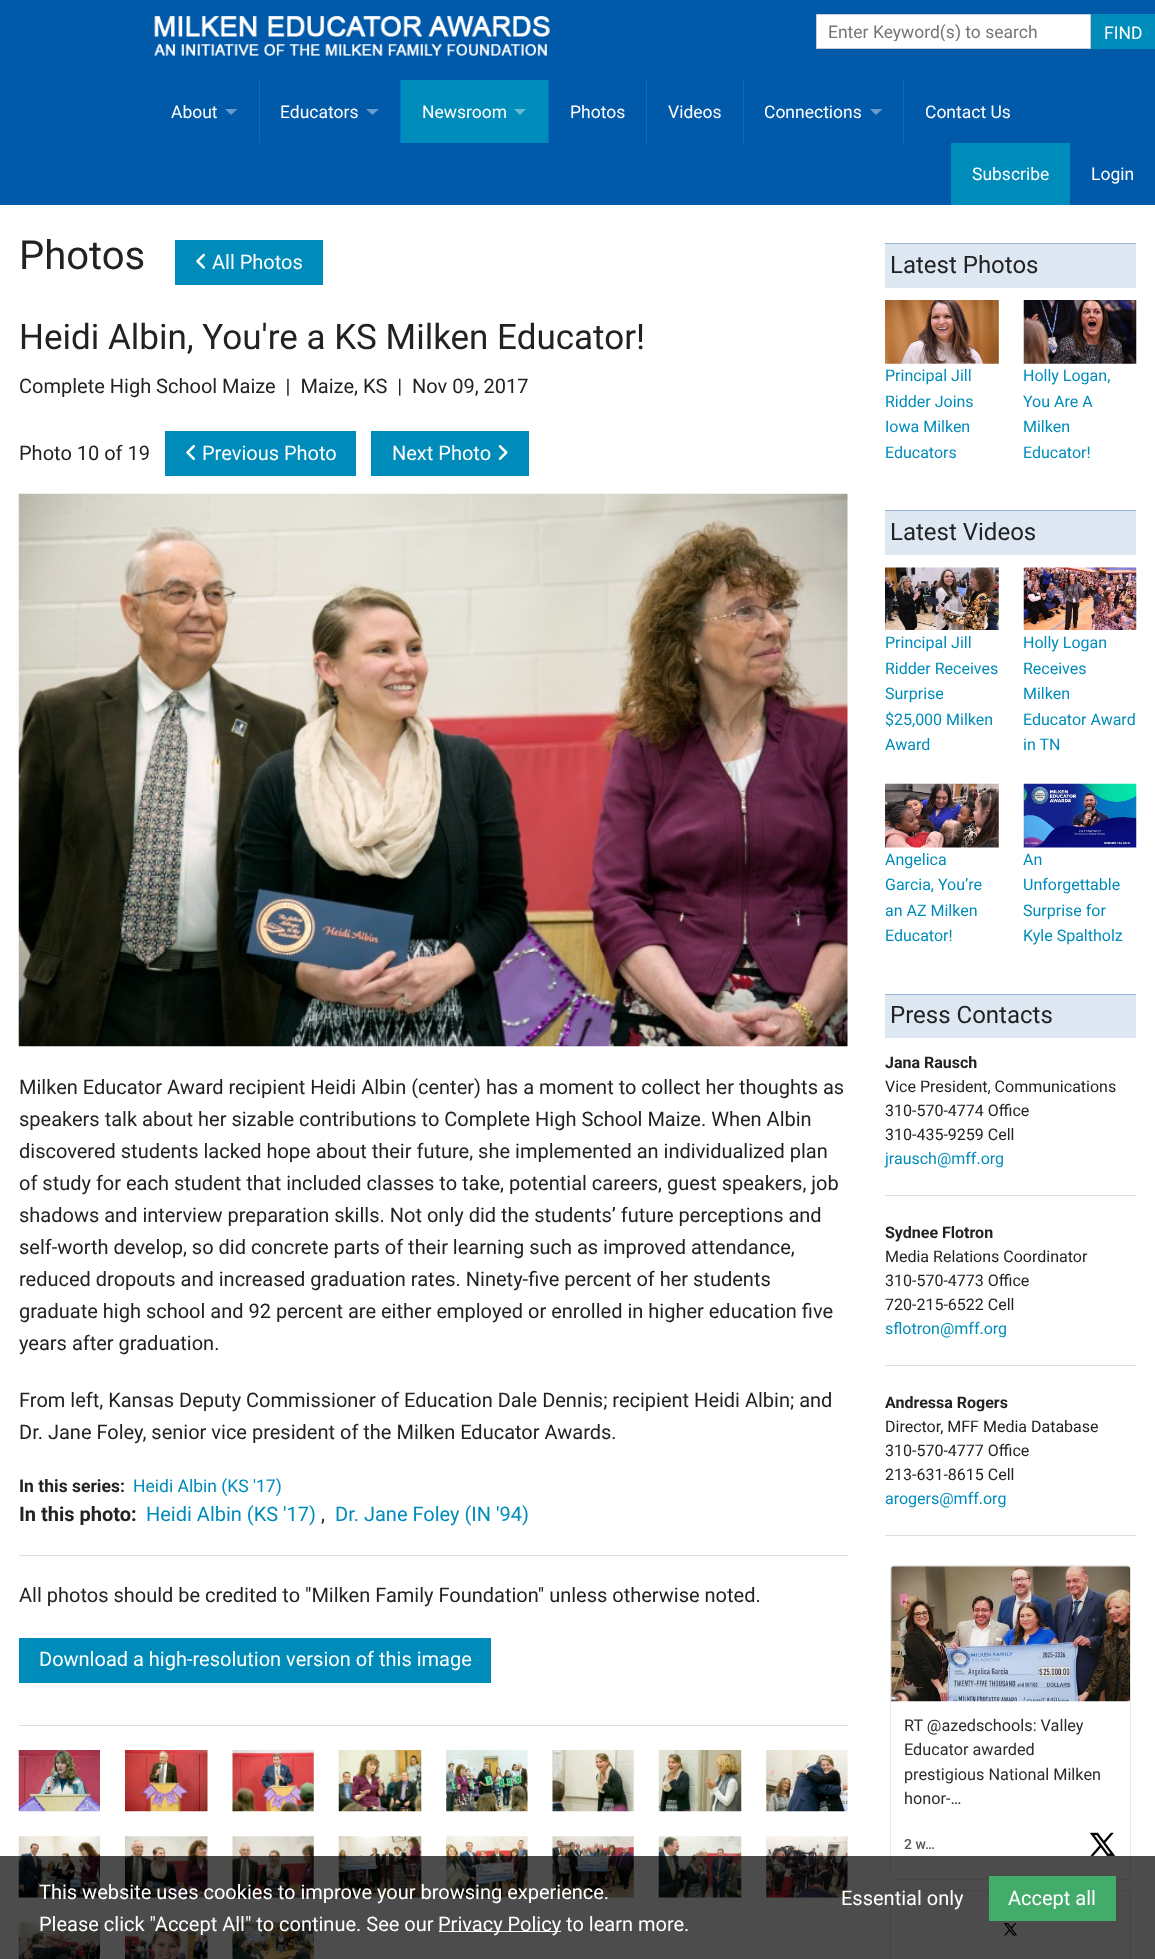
async function draw(canvas) {
  canvas.width = 1155
  canvas.height = 1959
  const ctx = canvas.getContext('2d')
  ctx.miterLimit = 4
  ctx.fontKerning = 'normal'
  async function loadImage(src) {
    const img = new Image()
    img.src = src
    await img.decode()
    return img
  }

  ctx.fillStyle = '#fff'
  ctx.fillRect(0, 0, 1155, 1959)
  ctx.fillStyle = '#0059a9'
  ctx.fillRect(0, 0, 1155, 205)
  ctx.drawImage(await loadImage('image0.png'), 154, 16, 396, 40)
  ctx.fillStyle = '#fff'
  ctx.beginPath()
  ctx.rect(816.5, 14.5, 274, 34)
  ctx.fill()
  ctx.strokeStyle = '#ccc'
  ctx.stroke()
  ctx.save()
  ctx.beginPath()
  ctx.rect(828, 21, 252, 20)
  ctx.clip()
  ctx.font = '17.5px Roboto'
  ctx.fillStyle = '#757575'
  ctx.fillText('Enter Keyword(s) to search', 828, 38)
  ctx.restore()
  ctx.fillStyle = '#008cba'
  ctx.fillRect(1091, 14, 64, 35)
  ctx.font = '17.5px Roboto'
  ctx.fillStyle = '#fff'
  ctx.fillText('FIND', 1104, 39)
  ctx.fillText('About', 171, 118)
  ctx.fillStyle = '#669bcb'
  ctx.beginPath()
  ctx.moveTo(225, 109)
  ctx.lineTo(237.5, 109)
  ctx.lineTo(231, 115)
  ctx.closePath()
  ctx.fill()
  ctx.fillStyle = '#0070d5'
  ctx.fillRect(259, 80, 1, 63)
  ctx.fillStyle = '#fff'
  ctx.fillText('Educators', 280, 118)
  ctx.fillStyle = '#669bcb'
  ctx.beginPath()
  ctx.moveTo(366, 109)
  ctx.lineTo(379, 109)
  ctx.lineTo(372.5, 115)
  ctx.closePath()
  ctx.fill()
  ctx.fillStyle = '#0070d5'
  ctx.fillRect(400, 80, 1, 63)
  ctx.fillStyle = '#008cba'
  ctx.fillRect(401, 80, 147, 63)
  ctx.fillStyle = '#fff'
  ctx.fillText('Newsroom', 422, 118)
  ctx.fillStyle = '#66bad6'
  ctx.beginPath()
  ctx.moveTo(514, 109)
  ctx.lineTo(526, 109)
  ctx.lineTo(520, 115)
  ctx.closePath()
  ctx.fill()
  ctx.fillStyle = '#0070d5'
  ctx.fillRect(548, 80, 1, 63)
  ctx.fillStyle = '#fff'
  ctx.fillText('Photos', 570, 118)
  ctx.fillStyle = '#0070d5'
  ctx.fillRect(646, 80, 1, 63)
  ctx.fillStyle = '#fff'
  ctx.fillText('Videos', 668, 118)
  ctx.fillStyle = '#0070d5'
  ctx.fillRect(743, 80, 1, 63)
  ctx.fillStyle = '#fff'
  ctx.fillText('Connections', 764, 118)
  ctx.fillStyle = '#669bcb'
  ctx.beginPath()
  ctx.moveTo(870, 109)
  ctx.lineTo(882.5, 109)
  ctx.lineTo(876, 115)
  ctx.closePath()
  ctx.fill()
  ctx.fillStyle = '#0070d5'
  ctx.fillRect(903, 80, 1, 63)
  ctx.fillStyle = '#fff'
  ctx.fillText('Contact Us', 925, 118)
  ctx.fillStyle = '#008cba'
  ctx.fillRect(951, 143, 119, 62)
  ctx.fillStyle = '#fff'
  ctx.fillText('Subscribe', 972, 180)
  ctx.fillText('Login', 1091, 180)
  ctx.font = '40px Roboto'
  ctx.fillStyle = '#222'
  ctx.fillText('Photos', 19, 269)
  ctx.fillStyle = '#008cba'
  ctx.fillRect(175, 240, 148, 45)
  ctx.drawImage(await loadImage('image1.png'), 196, 253, 9, 16)
  ctx.font = '20px Roboto'
  ctx.fillStyle = '#fff'
  ctx.fillText('All Photos', 212, 269)
  ctx.font = '35px Roboto'
  ctx.fillStyle = '#222'
  ctx.fillText('Heidi Albin, You\'re a KS Milken Educator!', 19, 349)
  ctx.font = '20px Roboto'
  ctx.fillText('Complete High School Maize  |  Maize, KS  |  Nov 09, 2017', 19, 393)
  ctx.fillText('Photo 10 of 19', 19, 460)
  ctx.fillStyle = '#008cba'
  ctx.fillRect(165, 431, 191, 45)
  ctx.drawImage(await loadImage('image2.png'), 186, 445, 9, 15)
  ctx.fillStyle = '#fff'
  ctx.fillText('Previous Photo', 202, 460)
  ctx.fillStyle = '#008cba'
  ctx.fillRect(371, 431, 158, 45)
  ctx.fillStyle = '#fff'
  ctx.fillText('Next Photo', 392, 460)
  ctx.drawImage(await loadImage('image3.png'), 498, 445, 10, 15)
  ctx.drawImage(await loadImage('image4.png'), 18, 493, 830, 554)
  ctx.fillStyle = '#222'
  ctx.fillText('Milken Educator Award recipient Heidi Albin (center) has a moment to collect her thoughts as', 19, 1094)
  ctx.fillText('speakers talk about her sizable contributions to Complete High School Maize. When Albin', 19, 1126)
  ctx.fillText('discovered students lacked hope about their future, she implemented an individualized plan', 19, 1158)
  ctx.fillText('of study for each student that included classes to take, potential careers, guest speakers, job', 19, 1190)
  ctx.fillText('shadows and interview preparation skills. Not only did the students’ future perceptions and', 19, 1222)
  ctx.fillText('self-worth develop, so did concrete parts of their learning such as improved attendance,', 19, 1254)
  ctx.fillText('reduced dropouts and increased graduation rates. Ninety-five percent of her students', 19, 1286)
  ctx.fillText('graduate high school and 92 percent are either employed or enrolled in higher education five', 19, 1318)
  ctx.fillText('years after graduation.', 19, 1350)
  ctx.fillText('From left, Kansas Deputy Commissioner of Education Dale Dennis; recipient Heidi Albin; and', 19, 1407)
  ctx.fillText('Dr. Jane Foley, senior vice president of the Milken Educator Awards.', 19, 1439)
  ctx.font = 'bold 17.5px Roboto'
  ctx.fillText('In this series:', 19, 1492)
  ctx.font = '17.5px Roboto'
  ctx.fillStyle = '#008cba'
  ctx.fillText('Heidi Albin (KS \'17)', 133, 1492)
  ctx.font = 'bold 20px Roboto'
  ctx.fillStyle = '#222'
  ctx.fillText('In this photo:', 19, 1521)
  ctx.font = '20px Roboto'
  ctx.fillStyle = '#008cba'
  ctx.fillText('Heidi Albin (KS \'17)', 146, 1521)
  ctx.fillStyle = '#222'
  ctx.fillText(',', 321, 1521)
  ctx.fillStyle = '#008cba'
  ctx.fillText('Dr. Jane Foley (IN \'94)', 335, 1521)
  ctx.fillStyle = '#ddd'
  ctx.fillRect(19, 1555, 829, 1)
  ctx.fillStyle = '#222'
  ctx.fillText('All photos should be credited to "Milken Family Foundation" unless otherwise noted.', 19, 1602)
  ctx.fillStyle = '#008cba'
  ctx.fillRect(19, 1638, 472, 45)
  ctx.fillStyle = '#fff'
  ctx.fillText('Download a high-resolution version of this image', 39, 1666)
  ctx.fillStyle = '#ddd'
  ctx.fillRect(19, 1725, 829, 1)
  ctx.drawImage(await loadImage('image5.png'), 18, 1750, 82, 62)
  ctx.drawImage(await loadImage('image6.png'), 125, 1750, 83, 62)
  ctx.drawImage(await loadImage('image7.png'), 232, 1750, 82, 62)
  ctx.drawImage(await loadImage('image8.png'), 338, 1750, 84, 62)
  ctx.drawImage(await loadImage('image9.png'), 446, 1750, 82, 62)
  ctx.drawImage(await loadImage('image10.png'), 552, 1750, 82, 62)
  ctx.drawImage(await loadImage('image11.png'), 658, 1750, 84, 62)
  ctx.drawImage(await loadImage('image12.png'), 766, 1750, 82, 62)
  ctx.drawImage(await loadImage('image13.png'), 18, 1836, 82, 62)
  ctx.drawImage(await loadImage('image14.png'), 125, 1836, 83, 62)
  ctx.drawImage(await loadImage('image15.png'), 232, 1836, 82, 62)
  ctx.drawImage(await loadImage('image16.png'), 338, 1836, 84, 62)
  ctx.drawImage(await loadImage('image17.png'), 446, 1836, 82, 62)
  ctx.drawImage(await loadImage('image18.png'), 552, 1836, 82, 62)
  ctx.drawImage(await loadImage('image19.png'), 658, 1836, 84, 62)
  ctx.drawImage(await loadImage('image20.png'), 766, 1836, 82, 62)
  ctx.drawImage(await loadImage('image21.png'), 18, 1922, 82, 37)
  ctx.drawImage(await loadImage('image22.png'), 125, 1922, 83, 37)
  ctx.drawImage(await loadImage('image23.png'), 232, 1922, 82, 37)
  ctx.fillStyle = '#dee8f3'
  ctx.fillRect(885, 244, 251, 44)
  ctx.fillStyle = '#99b1d7'
  ctx.fillRect(885, 243, 251, 1)
  ctx.font = '24px Roboto'
  ctx.fillStyle = '#222'
  ctx.fillText('Latest Photos', 890, 273)
  ctx.drawImage(await loadImage('image24.png'), 885, 300, 114, 64)
  ctx.font = '16px Roboto'
  ctx.fillStyle = '#008cba'
  ctx.fillText('Principal Jill', 885, 381)
  ctx.fillText('Ridder Joins', 885, 407)
  ctx.fillText('Iowa Milken', 885, 432)
  ctx.fillText('Educators', 885, 458)
  ctx.drawImage(await loadImage('image25.png'), 1023, 300, 114, 64)
  ctx.fillText('Holly Logan,', 1023, 381)
  ctx.fillText('You Are A', 1023, 407)
  ctx.fillText('Milken', 1023, 432)
  ctx.fillText('Educator!', 1023, 458)
  ctx.fillStyle = '#dee8f3'
  ctx.fillRect(885, 511, 251, 44)
  ctx.fillStyle = '#99b1d7'
  ctx.fillRect(885, 510, 251, 1)
  ctx.font = '24px Roboto'
  ctx.fillStyle = '#222'
  ctx.fillText('Latest Videos', 890, 540)
  ctx.drawImage(await loadImage('image26.png'), 885, 567, 114, 63)
  ctx.font = '16px Roboto'
  ctx.fillStyle = '#008cba'
  ctx.fillText('Principal Jill', 885, 648)
  ctx.fillText('Ridder Receives', 885, 674)
  ctx.fillText('Surprise', 885, 699)
  ctx.fillText('$25,000 Milken', 885, 725)
  ctx.fillText('Award', 885, 750)
  ctx.drawImage(await loadImage('image27.png'), 1023, 567, 114, 63)
  ctx.fillText('Holly Logan', 1023, 648)
  ctx.fillText('Receives', 1023, 674)
  ctx.fillText('Milken', 1023, 699)
  ctx.fillText('Educator Award', 1023, 725)
  ctx.fillText('in TN', 1023, 750)
  ctx.drawImage(await loadImage('image28.png'), 885, 783, 114, 65)
  ctx.fillText('Angelica', 885, 865)
  ctx.fillText('Garcia, You’re', 885, 890)
  ctx.fillText('an AZ Milken', 885, 916)
  ctx.fillText('Educator!', 885, 941)
  ctx.drawImage(await loadImage('image29.png'), 1023, 783, 114, 65)
  ctx.fillText('An', 1023, 865)
  ctx.fillText('Unforgettable', 1023, 890)
  ctx.fillText('Surprise for', 1023, 916)
  ctx.fillText('Kyle Spaltholz', 1023, 941)
  ctx.fillStyle = '#dee8f3'
  ctx.fillRect(885, 995, 251, 43)
  ctx.fillStyle = '#99b1d7'
  ctx.fillRect(885, 994, 251, 1)
  ctx.font = '24px Roboto'
  ctx.fillStyle = '#222'
  ctx.fillText('Press Contacts', 890, 1023)
  ctx.font = 'bold 16px Roboto'
  ctx.fillText('Jana Rausch', 885, 1068)
  ctx.font = '16px Roboto'
  ctx.fillText('Vice President, Communications', 885, 1092)
  ctx.fillText('310-570-4774 Office', 885, 1116)
  ctx.fillText('310-435-9259 Cell', 885, 1140)
  ctx.fillStyle = '#008cba'
  ctx.fillText('jrausch@mff.org', 885, 1164)
  ctx.fillStyle = '#ddd'
  ctx.fillRect(885, 1195, 251, 1)
  ctx.font = 'bold 16px Roboto'
  ctx.fillStyle = '#222'
  ctx.fillText('Sydnee Flotron', 885, 1238)
  ctx.font = '16px Roboto'
  ctx.fillText('Media Relations Coordinator', 885, 1262)
  ctx.fillText('310-570-4773 Office', 885, 1286)
  ctx.fillText('720-215-6522 Cell', 885, 1310)
  ctx.fillStyle = '#008cba'
  ctx.fillText('sflotron@mff.org', 885, 1334)
  ctx.fillStyle = '#ddd'
  ctx.fillRect(885, 1365, 251, 1)
  ctx.font = 'bold 16px Roboto'
  ctx.fillStyle = '#222'
  ctx.fillText('Andressa Rogers', 885, 1408)
  ctx.font = '16px Roboto'
  ctx.fillText('Director, MFF Media Database', 885, 1432)
  ctx.fillText('310-570-4777 Office', 885, 1456)
  ctx.fillText('213-631-8615 Cell', 885, 1480)
  ctx.fillStyle = '#008cba'
  ctx.fillText('arogers@mff.org', 885, 1504)
  ctx.fillStyle = '#ddd'
  ctx.fillRect(885, 1535, 251, 1)
  ctx.beginPath()
  ctx.roundRect(890.5, 1565.5, 240, 314, 3.5)
  ctx.strokeStyle = '#e6e6e6'
  ctx.stroke()
  ctx.drawImage(await loadImage('image30.png'), 891, 1566, 239, 136)
  ctx.font = '16.25px Roboto'
  ctx.fillStyle = '#2b2b2b'
  ctx.fillText('RT @azedschools: Valley', 904, 1731)
  ctx.fillText('Educator awarded', 904, 1755)
  ctx.fillText('prestigious National Milken', 904, 1780)
  ctx.fillText('honor-…', 904, 1804)
  ctx.font = '500 14px Roboto'
  ctx.fillStyle = '#555'
  ctx.fillText('2 w…', 904, 1849)
  ctx.drawImage(await loadImage('image31.png'), 1089, 1832, 27, 24)
  ctx.beginPath()
  ctx.roundRect(890.5, 1890.5, 240, 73, 3.5)
  ctx.stroke()
  ctx.drawImage(await loadImage('image32.png'), 1003, 1923, 15, 13)
  ctx.fillStyle = '#000000b3'
  ctx.fillRect(0, 1856, 1155, 103)
  ctx.font = '20px Roboto'
  ctx.fillStyle = '#fff'
  ctx.fillText('This website uses cookies to improve your browsing experience.', 39, 1899)
  ctx.fillText('Please click "Accept All" to continue. See our', 39, 1931)
  ctx.fillRect(439, 1931, 122, 1)
  ctx.fillText('Privacy Policy to learn more.', 438, 1931)
  ctx.fillText('Essential only', 841, 1905)
  ctx.fillStyle = '#43ac6a'
  ctx.fillRect(989, 1876, 127, 45)
  ctx.fillStyle = '#fff'
  ctx.fillText('Accept all', 1008, 1905)
}

draw(document.querySelector('canvas'))
